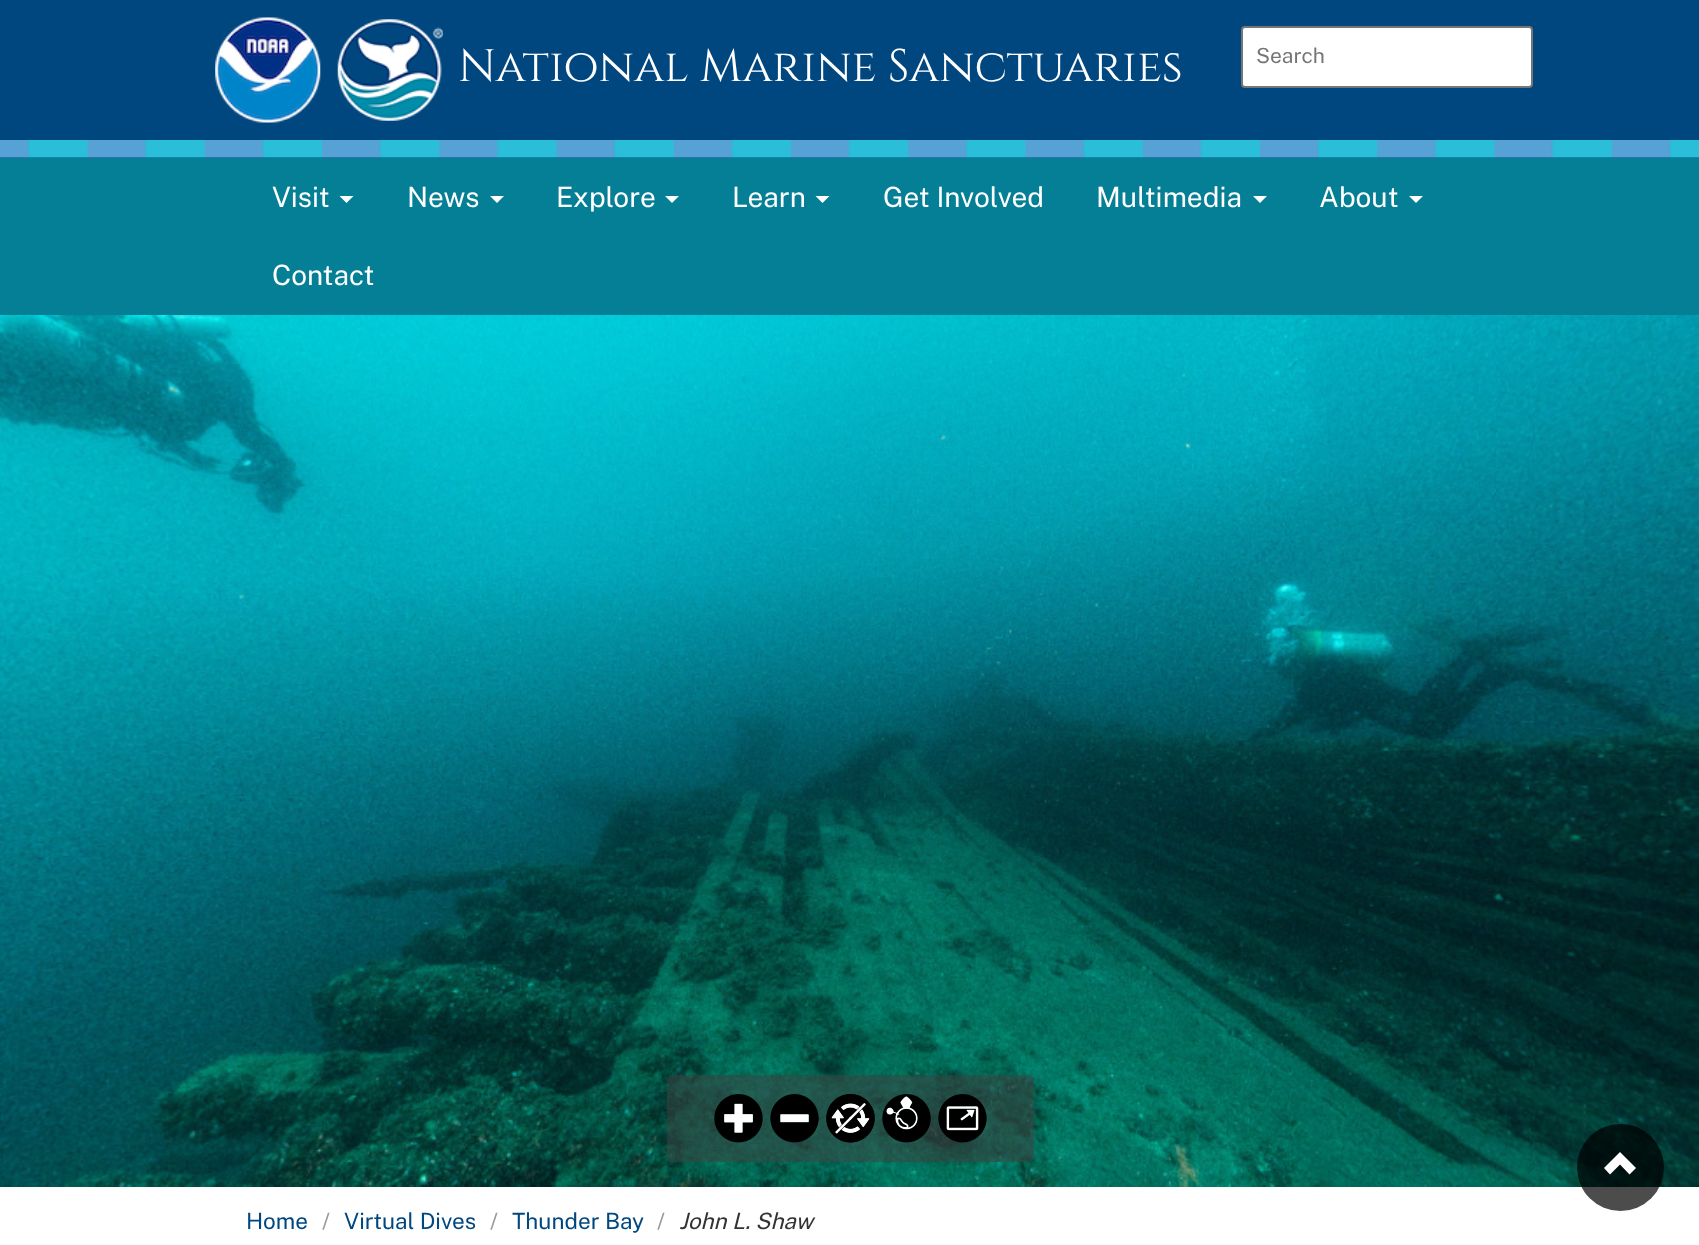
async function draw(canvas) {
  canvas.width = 1699
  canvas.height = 1245
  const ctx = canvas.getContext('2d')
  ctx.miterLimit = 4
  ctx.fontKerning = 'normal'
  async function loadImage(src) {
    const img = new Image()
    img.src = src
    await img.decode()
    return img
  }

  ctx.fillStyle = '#fff'
  ctx.fillRect(0, 0, 1699, 1245)
  ctx.fillStyle = '#00467f'
  ctx.fillRect(0, 0, 1699, 158)
  ctx.drawImage(await loadImage('image0.png'), 215, 17, 106, 106)
  ctx.drawImage(await loadImage('image1.png'), 337, 19, 106, 102)
  ctx.font = '45.5px Cinzel'
  ctx.fillStyle = '#fff'
  ctx.fillText('National Marine Sanctuaries', 458, 81)
  ctx.beginPath()
  ctx.roundRect(1242, 27, 290, 60, 3)
  ctx.fill()
  ctx.strokeStyle = '#767676'
  ctx.lineWidth = 2
  ctx.stroke()
  ctx.font = '21px Public Sans'
  ctx.fillStyle = '#757575'
  ctx.fillText('Search', 1256, 63)
  ctx.fillStyle = '#057f95'
  ctx.fillRect(0, 158, 1699, 157)
  ctx.drawImage(await loadImage('image2.png'), 0, 140, 1699, 18)
  ctx.font = '28px Public Sans'
  ctx.fillStyle = '#fff'
  ctx.fillText('Visit', 272, 207)
  ctx.beginPath()
  ctx.moveTo(339.5, 196)
  ctx.lineTo(353.5, 196)
  ctx.lineTo(346.5, 203)
  ctx.closePath()
  ctx.fill()
  ctx.fillText('News', 407, 207)
  ctx.beginPath()
  ctx.moveTo(490, 196)
  ctx.lineTo(504, 196)
  ctx.lineTo(497, 203)
  ctx.closePath()
  ctx.fill()
  ctx.fillText('Explore', 556, 207)
  ctx.beginPath()
  ctx.moveTo(665, 196)
  ctx.lineTo(679, 196)
  ctx.lineTo(672, 203)
  ctx.closePath()
  ctx.fill()
  ctx.fillText('Learn', 732, 207)
  ctx.beginPath()
  ctx.moveTo(815.5, 196)
  ctx.lineTo(829.5, 196)
  ctx.lineTo(822.5, 203)
  ctx.closePath()
  ctx.fill()
  ctx.fillText('Get Involved', 883, 207)
  ctx.fillText('Multimedia', 1096, 207)
  ctx.beginPath()
  ctx.moveTo(1253, 196)
  ctx.lineTo(1267, 196)
  ctx.lineTo(1260, 203)
  ctx.closePath()
  ctx.fill()
  ctx.fillText('About', 1319, 207)
  ctx.beginPath()
  ctx.moveTo(1409, 196)
  ctx.lineTo(1423, 196)
  ctx.lineTo(1416, 203)
  ctx.closePath()
  ctx.fill()
  ctx.fillText('Contact', 272, 285)
  ctx.drawImage(await loadImage('image3.png'), 0, 315, 1699, 872)
  ctx.fillStyle = '#000000b3'
  ctx.beginPath()
  ctx.arc(1620.5, 1167.5, 43.5, 0, 2 * Math.PI)
  ctx.fill()
  ctx.fillStyle = '#fff'
  ctx.beginPath()
  ctx.moveTo(1604, 1168)
  ctx.lineTo(1610, 1174.5)
  ctx.lineTo(1620, 1164.5)
  ctx.lineTo(1629.5, 1174.5)
  ctx.lineTo(1636, 1168)
  ctx.lineTo(1620, 1152)
  ctx.closePath()
  ctx.fill()
  ctx.fillStyle = '#3f3f3f80'
  ctx.beginPath()
  ctx.roundRect(667, 1075, 367, 87, 5)
  ctx.fill()
  ctx.drawImage(await loadImage('image4.png'), 714, 1094, 49, 49)
  ctx.drawImage(await loadImage('image5.png'), 770, 1094, 49, 49)
  ctx.drawImage(await loadImage('image6.png'), 826, 1094, 49, 49)
  ctx.drawImage(await loadImage('image7.png'), 826, 1094, 49, 49)
  ctx.drawImage(await loadImage('image8.png'), 882, 1094, 49, 49)
  ctx.drawImage(await loadImage('image9.png'), 938, 1094, 49, 49)
  ctx.font = '22.5px Public Sans'
  ctx.fillStyle = '#00467f'
  ctx.fillText('Home', 246, 1229)
  ctx.fillStyle = '#999'
  ctx.fillText('/', 322, 1229)
  ctx.fillStyle = '#00467f'
  ctx.fillText('Virtual Dives', 344, 1229)
  ctx.fillStyle = '#999'
  ctx.fillText('/', 490, 1229)
  ctx.fillStyle = '#00467f'
  ctx.fillText('Thunder Bay', 512, 1229)
  ctx.fillStyle = '#999'
  ctx.fillText('/', 657, 1229)
  ctx.font = 'italic 22.5px Public Sans'
  ctx.fillStyle = '#333'
  ctx.fillText('John L. Shaw', 679, 1229)
}

draw(document.querySelector('canvas'))
